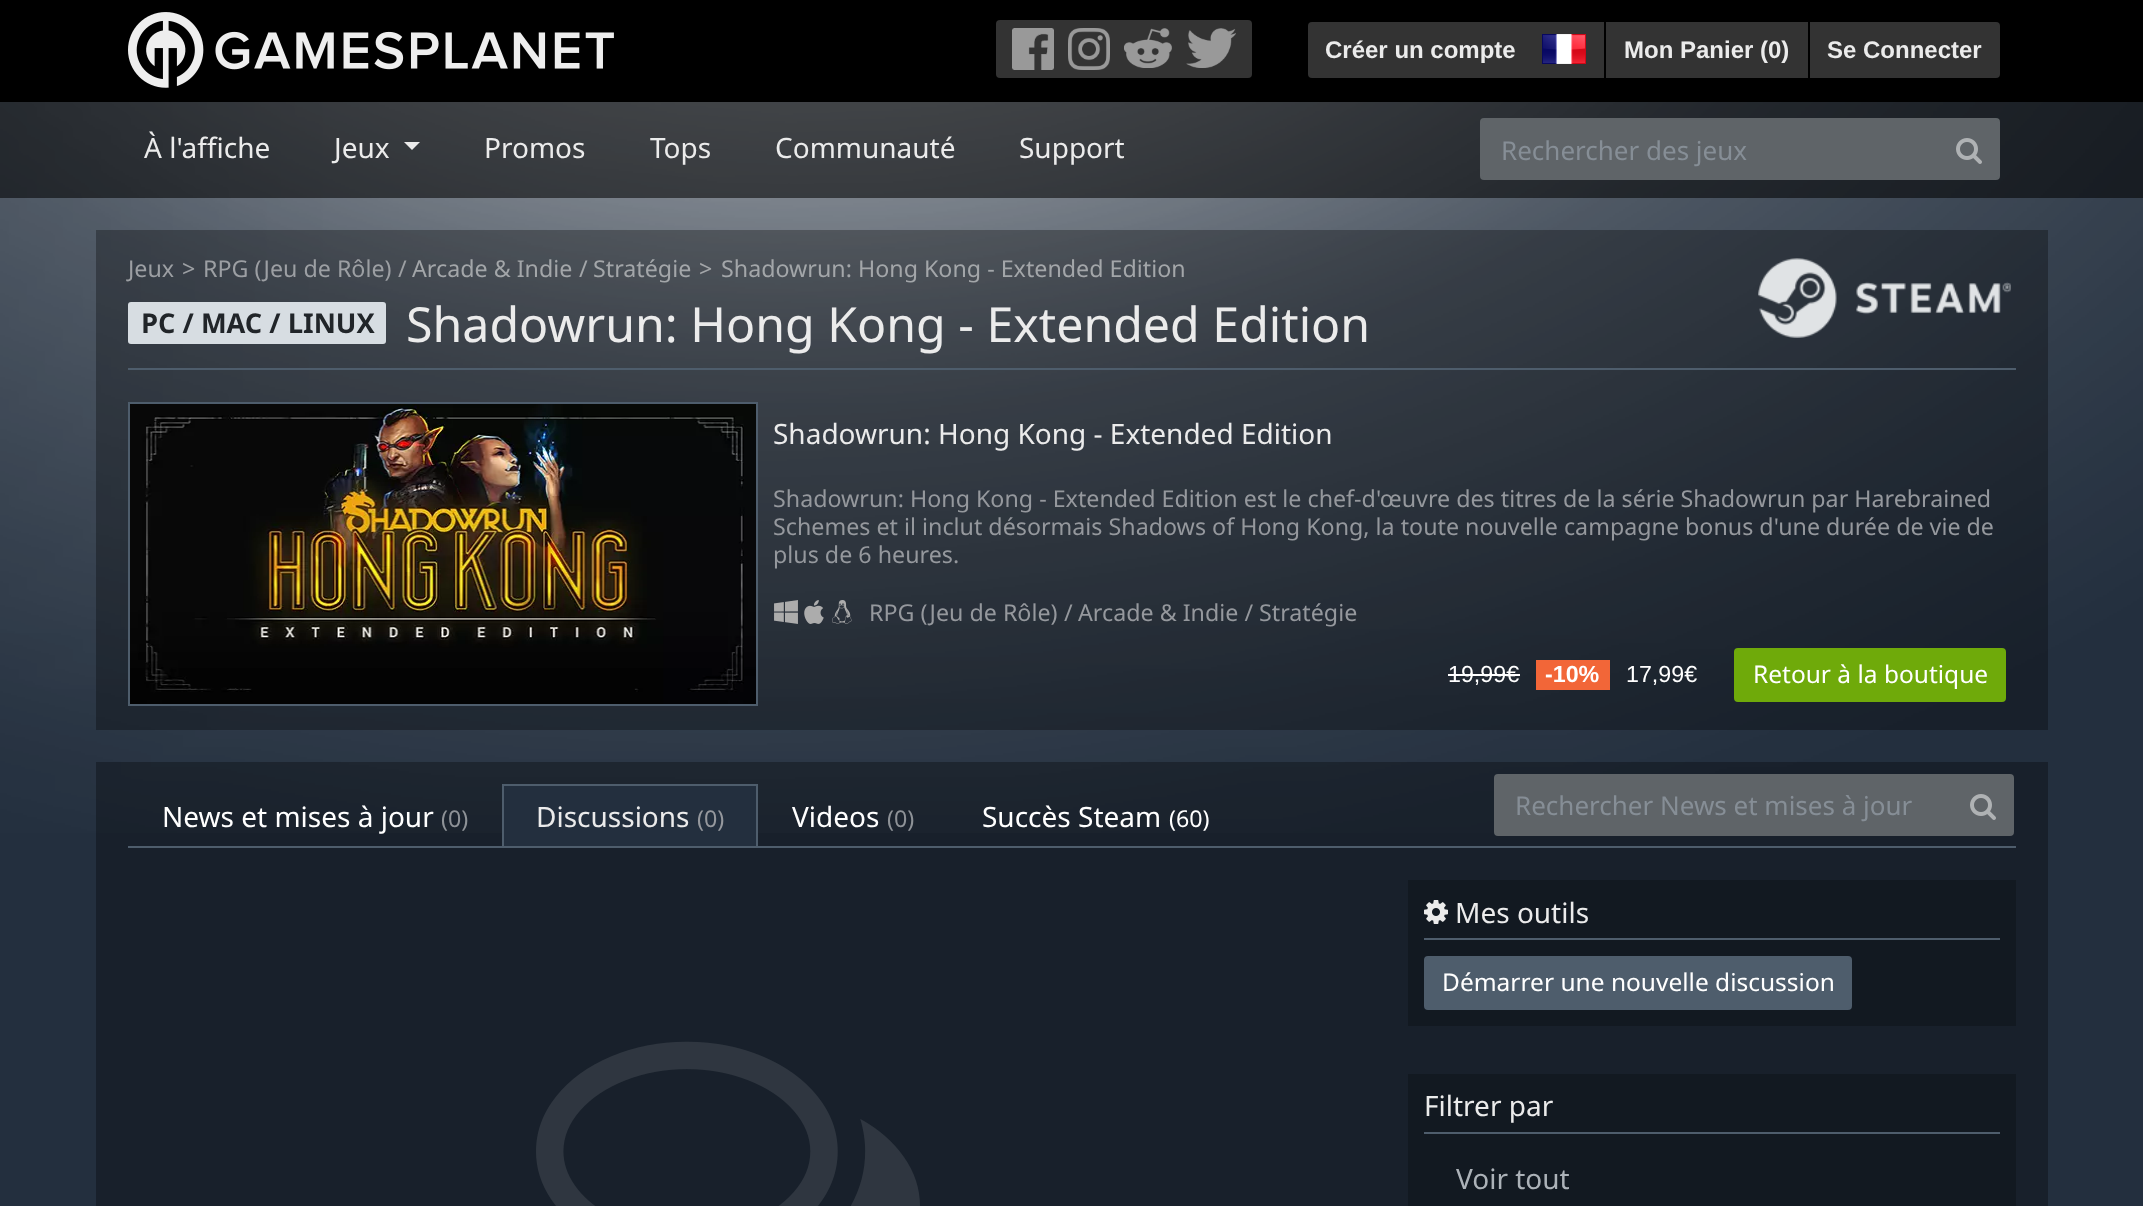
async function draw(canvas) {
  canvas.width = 2143
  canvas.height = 1206
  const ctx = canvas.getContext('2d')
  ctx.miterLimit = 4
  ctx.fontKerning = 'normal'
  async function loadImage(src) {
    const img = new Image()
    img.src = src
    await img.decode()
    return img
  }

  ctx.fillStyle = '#232f3e'
  ctx.fillRect(0, 0, 2143, 1206)
  ctx.drawImage(await loadImage('image0.png'), 0, 102, 2143, 731)
  ctx.fillStyle = '#000'
  ctx.fillRect(0, 0, 2143, 102)
  ctx.drawImage(await loadImage('image1.png'), 128, 12, 486, 76)
  ctx.fillStyle = '#333'
  ctx.beginPath()
  ctx.roundRect(996, 20, 66, 58, [4, 0, 0, 4])
  ctx.fill()
  ctx.drawImage(await loadImage('image2.png'), 1012, 28, 42, 42)
  ctx.fillRect(1062, 20, 116, 58)
  ctx.drawImage(await loadImage('image3.png'), 1068, 28, 42, 42)
  ctx.beginPath()
  ctx.roundRect(1178, 20, 74, 58, [0, 4, 4, 0])
  ctx.fill()
  ctx.drawImage(await loadImage('image4.png'), 1186, 28, 50, 40)
  ctx.drawImage(await loadImage('image5.png'), 1124, 28, 48, 40)
  ctx.beginPath()
  ctx.roundRect(1308, 22, 226, 56, [4, 0, 0, 4])
  ctx.fill()
  ctx.font = 'bold 24px Liberation Sans'
  ctx.fillStyle = '#ebebeb'
  ctx.fillText('Créer un compte', 1325, 58)
  ctx.fillStyle = '#333'
  ctx.fillRect(1534, 22, 70, 56)
  ctx.drawImage(await loadImage('image6.png'), 1542, 34, 44, 30)
  ctx.fillRect(1606, 22, 202, 56)
  ctx.fillStyle = '#ebebeb'
  ctx.fillText('Mon Panier (0)', 1624, 58)
  ctx.fillStyle = '#333'
  ctx.beginPath()
  ctx.roundRect(1810, 22, 190, 56, [0, 4, 4, 0])
  ctx.fill()
  ctx.fillStyle = '#ebebeb'
  ctx.fillText('Se Connecter', 1827, 58)
  ctx.fillStyle = '#0000008c'
  ctx.fillRect(0, 102, 2143, 96)
  ctx.font = '28px Noto Sans'
  ctx.fillStyle = '#ebebeb'
  ctx.fillText('À l\'affiche', 144, 158)
  ctx.fillText('Jeux', 334, 158)
  ctx.beginPath()
  ctx.moveTo(404, 142)
  ctx.lineTo(420, 142)
  ctx.lineTo(412, 150)
  ctx.closePath()
  ctx.fill()
  ctx.fillText('Promos', 484, 158)
  ctx.fillText('Tops', 650, 158)
  ctx.fillText('Communauté', 775, 158)
  ctx.fillText('Support', 1019, 158)
  ctx.fillStyle = '#5f6468'
  ctx.beginPath()
  ctx.roundRect(1481, 119, 458, 60, [3, 0, 0, 3])
  ctx.fill()
  ctx.strokeStyle = '#5f6468'
  ctx.lineWidth = 2
  ctx.stroke()
  ctx.font = '26px Noto Sans'
  ctx.fillStyle = '#868e96'
  ctx.fillText('Rechercher des jeux', 1501, 160)
  ctx.fillStyle = '#5f6468'
  ctx.beginPath()
  ctx.roundRect(1939, 119, 60, 60, [0, 3, 3, 0])
  ctx.fill()
  ctx.stroke()
  ctx.drawImage(await loadImage('image7.png'), 1956, 138, 26, 26)
  ctx.fillStyle = '#0000004d'
  ctx.fillRect(96, 230, 1952, 500)
  ctx.font = '23.25px Noto Sans'
  ctx.fillStyle = '#9c9fa3'
  ctx.fillText('Jeux', 128, 277)
  ctx.fillText('>', 182, 277)
  ctx.fillText('RPG (Jeu de Rôle)', 203, 277)
  ctx.fillText('/', 398, 277)
  ctx.fillStyle = '#a3a6a9'
  ctx.fillText('Arcade & Indie', 412, 277)
  ctx.fillText('/', 579, 277)
  ctx.fillText('Stratégie', 593, 277)
  ctx.fillText('>', 699, 277)
  ctx.fillText('Shadowrun: Hong Kong - Extended Edition', 721, 277)
  ctx.fillStyle = '#d7dde2'
  ctx.beginPath()
  ctx.roundRect(128, 302, 258, 42, 3)
  ctx.fill()
  ctx.font = 'bold 27.25px Noto Sans'
  ctx.fillStyle = '#212529'
  ctx.fillText('PC / MAC / LINUX', 141, 333)
  ctx.fillStyle = '#4e5d6c'
  ctx.fillRect(128, 368, 1888, 2)
  ctx.font = '48.25px Noto Sans'
  ctx.fillStyle = '#ebebeb'
  ctx.fillText('Shadowrun: Hong Kong - Extended Edition', 406, 342)
  ctx.drawImage(await loadImage('image8.png'), 1758, 258, 253, 80)
  ctx.strokeStyle = '#4e5d6c'
  ctx.strokeRect(129, 403, 628, 302)
  ctx.drawImage(await loadImage('image9.png'), 130, 404, 626, 300)
  ctx.font = '28px Noto Sans'
  ctx.fillText('Shadowrun: Hong Kong - Extended Edition', 773, 444)
  ctx.font = '23.25px Noto Sans'
  ctx.fillStyle = '#95989d'
  ctx.fillText('Shadowrun: Hong Kong - Extended Edition est le chef-d\'œuvre des titres de la série Shadowrun par Harebrained', 773, 507)
  ctx.fillText('Schemes et il inclut désormais Shadows of Hong Kong, la toute nouvelle campagne bonus d\'une durée de vie de', 773, 535)
  ctx.fillText('plus de 6 heures.', 773, 563)
  ctx.drawImage(await loadImage('image10.png'), 774, 600, 24, 24)
  ctx.drawImage(await loadImage('image11.png'), 804, 600, 20, 24)
  ctx.drawImage(await loadImage('image12.png'), 832, 600, 20, 24)
  ctx.fillText('RPG (Jeu de Rôle)', 869, 621)
  ctx.fillText('/', 1064, 621)
  ctx.fillText('Arcade & Indie /', 1078, 621)
  ctx.fillText('Stratégie', 1259, 621)
  ctx.font = '23.25px Liberation Sans'
  ctx.fillStyle = '#fff'
  ctx.fillText('19,99€', 1448, 682)
  ctx.fillRect(1448, 674, 72, 2)
  ctx.fillStyle = '#f26638'
  ctx.fillRect(1536, 660, 74, 30)
  ctx.font = 'bold 23.25px Liberation Sans'
  ctx.fillStyle = '#fff'
  ctx.fillText('-10%', 1545, 682)
  ctx.font = '23.25px Liberation Sans'
  ctx.fillText('17,99€', 1626, 682)
  ctx.fillStyle = '#6faa0a'
  ctx.beginPath()
  ctx.roundRect(1735, 649, 270, 52, 3)
  ctx.fill()
  ctx.strokeStyle = '#6faa0a'
  ctx.stroke()
  ctx.font = '24.5px Noto Sans'
  ctx.fillStyle = '#fff'
  ctx.fillText('Retour à la boutique', 1753, 683)
  ctx.fillStyle = '#0000004d'
  ctx.fillRect(96, 762, 1952, 444)
  ctx.fillStyle = '#4e5d6c'
  ctx.fillRect(128, 846, 1888, 2)
  ctx.font = '28px Noto Sans'
  ctx.fillStyle = '#fff'
  ctx.fillText('News et mises à jour', 162, 827)
  ctx.font = '23.25px Noto Sans'
  ctx.fillStyle = '#8e9297'
  ctx.fillText('(0)', 441, 827)
  ctx.fillStyle = '#232f3e'
  ctx.fillRect(504, 786, 252, 60)
  ctx.save()
  ctx.beginPath()
  ctx.rect(128, 784, 1888, 62)
  ctx.clip()
  ctx.strokeStyle = '#4e5d6c'
  ctx.strokeRect(503, 785, 254, 62)
  ctx.restore()
  ctx.font = '28px Noto Sans'
  ctx.fillStyle = '#ebebeb'
  ctx.fillText('Discussions', 536, 827)
  ctx.font = '23.25px Noto Sans'
  ctx.fillStyle = '#95989d'
  ctx.fillText('(0)', 697, 827)
  ctx.font = '28px Noto Sans'
  ctx.fillStyle = '#fff'
  ctx.fillText('Videos', 792, 827)
  ctx.font = '23.25px Noto Sans'
  ctx.fillStyle = '#8e9297'
  ctx.fillText('(0)', 887, 827)
  ctx.font = '28px Noto Sans'
  ctx.fillStyle = '#fff'
  ctx.fillText('Succès Steam', 982, 827)
  ctx.font = '23.25px Noto Sans'
  ctx.fillText('(60)', 1169, 827)
  ctx.fillStyle = '#5f6468'
  ctx.beginPath()
  ctx.roundRect(1495, 775, 458, 60, [3, 0, 0, 3])
  ctx.fill()
  ctx.strokeStyle = '#5f6468'
  ctx.stroke()
  ctx.font = '26px Noto Sans'
  ctx.fillStyle = '#868e96'
  ctx.fillText('Rechercher News et mises à jour', 1515, 815)
  ctx.fillStyle = '#5f6468'
  ctx.beginPath()
  ctx.roundRect(1953, 775, 60, 60, [0, 3, 3, 0])
  ctx.fill()
  ctx.stroke()
  ctx.drawImage(await loadImage('image7.png'), 1970, 794, 26, 26)
  ctx.drawImage(await loadImage('image13.png'), 536, 1041, 384, 165)
  ctx.fillStyle = '#121921'
  ctx.fillRect(1408, 880, 608, 146)
  ctx.fillStyle = '#4e5d6c'
  ctx.fillRect(1424, 938, 576, 2)
  ctx.drawImage(await loadImage('image14.png'), 1424, 900, 24, 24)
  ctx.font = '28px Noto Sans'
  ctx.fillStyle = '#ebebeb'
  ctx.fillText('Mes outils', 1455, 923)
  ctx.fillStyle = '#4e5d6c'
  ctx.beginPath()
  ctx.roundRect(1425, 957, 426, 52, 3)
  ctx.fill()
  ctx.strokeStyle = '#4e5d6c'
  ctx.stroke()
  ctx.font = '24.5px Noto Sans'
  ctx.fillStyle = '#fff'
  ctx.fillText('Démarrer une nouvelle discussion', 1442, 991)
  ctx.fillStyle = '#121921'
  ctx.fillRect(1408, 1074, 608, 132)
  ctx.fillStyle = '#4e5d6c'
  ctx.fillRect(1424, 1132, 576, 2)
  ctx.font = '28px Noto Sans'
  ctx.fillStyle = '#ebebeb'
  ctx.fillText('Filtrer par', 1424, 1116)
  ctx.fillStyle = '#acb2b8'
  ctx.fillText('Voir tout', 1456, 1189)
}

draw(document.querySelector('canvas'))
